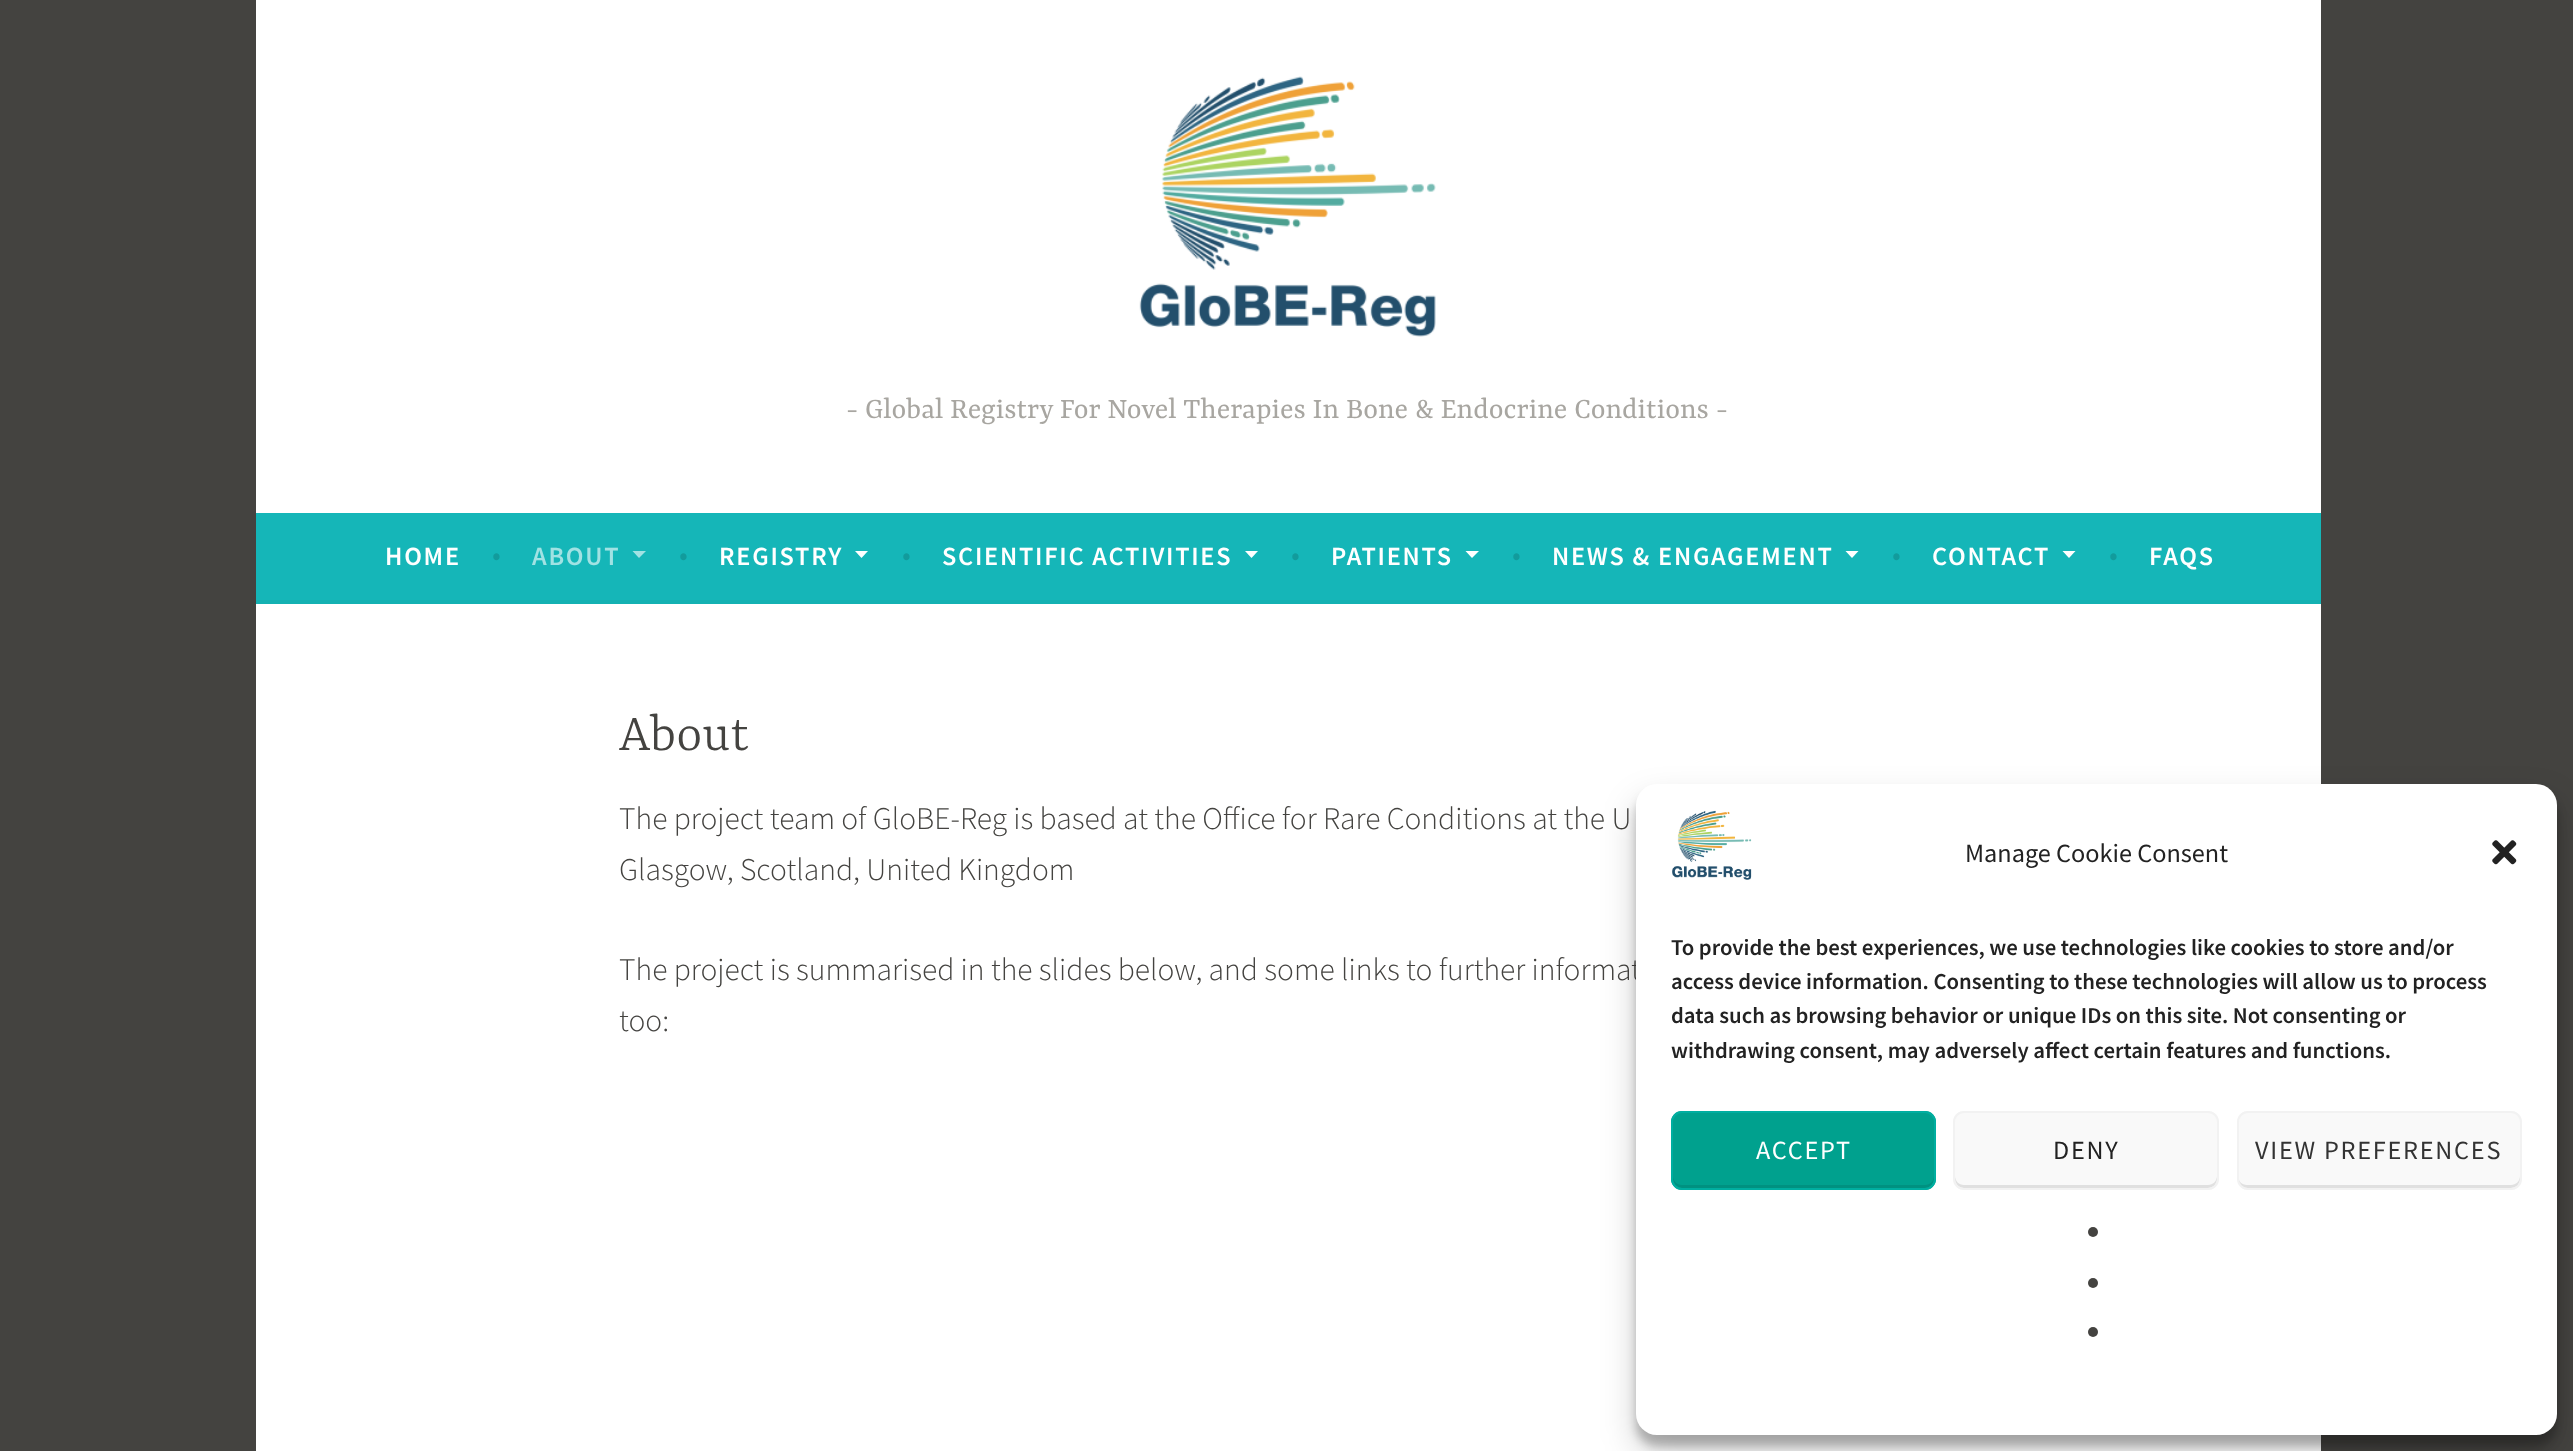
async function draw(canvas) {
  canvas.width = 2573
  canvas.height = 1451
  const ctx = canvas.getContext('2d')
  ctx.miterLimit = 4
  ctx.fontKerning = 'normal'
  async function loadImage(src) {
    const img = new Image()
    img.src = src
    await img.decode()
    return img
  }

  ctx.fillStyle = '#444340'
  ctx.fillRect(0, 0, 2573, 1451)
  ctx.fillStyle = '#fff'
  ctx.fillRect(256, 0, 2065, 513)
  ctx.drawImage(await loadImage('image0.png'), 1139, 76, 297, 261)
  ctx.font = '31.5px Yrsa'
  ctx.fillStyle = '#a8a6a1'
  ctx.fillText('- Global Registry For Novel Therapies In Bone & Endocrine Conditions -', 846, 418)
  ctx.fillStyle = '#15b6b8'
  ctx.fillRect(256, 513, 2065, 87)
  ctx.fillStyle = '#14b1b2'
  ctx.fillRect(256, 600, 2065, 4)
  ctx.letterSpacing = '1.75px'
  ctx.font = '600 26.25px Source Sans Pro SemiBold'
  ctx.fillStyle = '#fff'
  ctx.fillText('HOME', 385, 565)
  ctx.letterSpacing = '0px'
  ctx.font = '300 31.5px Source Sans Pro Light'
  ctx.fillStyle = '#129b9c'
  ctx.fillText('•', 492, 565)
  ctx.letterSpacing = '1.75px'
  ctx.font = '600 26.25px Source Sans Pro SemiBold'
  ctx.fillStyle = '#a1e2e3'
  ctx.fillText('ABOUT', 532, 565)
  ctx.beginPath()
  ctx.moveTo(632.5, 551)
  ctx.lineTo(646, 551)
  ctx.lineTo(639, 558)
  ctx.closePath()
  ctx.fill()
  ctx.letterSpacing = '0px'
  ctx.font = '300 31.5px Source Sans Pro Light'
  ctx.fillStyle = '#129b9c'
  ctx.fillText('•', 679, 565)
  ctx.letterSpacing = '1.75px'
  ctx.font = '600 26.25px Source Sans Pro SemiBold'
  ctx.fillStyle = '#fff'
  ctx.fillText('REGISTRY', 719, 565)
  ctx.beginPath()
  ctx.moveTo(855, 551)
  ctx.lineTo(868, 551)
  ctx.lineTo(861.5, 558)
  ctx.closePath()
  ctx.fill()
  ctx.letterSpacing = '0px'
  ctx.font = '300 31.5px Source Sans Pro Light'
  ctx.fillStyle = '#129b9c'
  ctx.fillText('•', 902, 565)
  ctx.letterSpacing = '1.75px'
  ctx.font = '600 26.25px Source Sans Pro SemiBold'
  ctx.fillStyle = '#fff'
  ctx.fillText('SCIENTIFIC ACTIVITIES', 942, 565)
  ctx.beginPath()
  ctx.moveTo(1245, 551)
  ctx.lineTo(1258, 551)
  ctx.lineTo(1251.5, 558)
  ctx.closePath()
  ctx.fill()
  ctx.letterSpacing = '0px'
  ctx.font = '300 31.5px Source Sans Pro Light'
  ctx.fillStyle = '#129b9c'
  ctx.fillText('•', 1291, 565)
  ctx.letterSpacing = '1.75px'
  ctx.font = '600 26.25px Source Sans Pro SemiBold'
  ctx.fillStyle = '#fff'
  ctx.fillText('PATIENTS', 1331, 565)
  ctx.beginPath()
  ctx.moveTo(1465.5, 551)
  ctx.lineTo(1479, 551)
  ctx.lineTo(1472, 558)
  ctx.closePath()
  ctx.fill()
  ctx.letterSpacing = '0px'
  ctx.font = '300 31.5px Source Sans Pro Light'
  ctx.fillStyle = '#129b9c'
  ctx.fillText('•', 1512, 565)
  ctx.letterSpacing = '1.75px'
  ctx.font = '600 26.25px Source Sans Pro SemiBold'
  ctx.fillStyle = '#fff'
  ctx.fillText('NEWS & ENGAGEMENT', 1552, 565)
  ctx.beginPath()
  ctx.moveTo(1845.5, 551)
  ctx.lineTo(1858.5, 551)
  ctx.lineTo(1852, 558)
  ctx.closePath()
  ctx.fill()
  ctx.letterSpacing = '0px'
  ctx.font = '300 31.5px Source Sans Pro Light'
  ctx.fillStyle = '#129b9c'
  ctx.fillText('•', 1892, 565)
  ctx.letterSpacing = '1.75px'
  ctx.font = '600 26.25px Source Sans Pro SemiBold'
  ctx.fillStyle = '#fff'
  ctx.fillText('CONTACT', 1932, 565)
  ctx.beginPath()
  ctx.moveTo(2062.5, 551)
  ctx.lineTo(2075.5, 551)
  ctx.lineTo(2069, 558)
  ctx.closePath()
  ctx.fill()
  ctx.letterSpacing = '0px'
  ctx.font = '300 31.5px Source Sans Pro Light'
  ctx.fillStyle = '#129b9c'
  ctx.fillText('•', 2109, 565)
  ctx.letterSpacing = '1.75px'
  ctx.font = '600 26.25px Source Sans Pro SemiBold'
  ctx.fillStyle = '#fff'
  ctx.fillText('FAQS', 2149, 565)
  ctx.fillRect(256, 604, 2065, 847)
  ctx.letterSpacing = '0px'
  ctx.font = '300 56px Yrsa'
  ctx.fillStyle = '#444340'
  ctx.fillText('About', 619, 750)
  ctx.font = '300 31.5px Source Sans Pro Light'
  ctx.fillText('The project team of GloBE-Reg is based at the Office for Rare Conditions at the U', 619, 829)
  ctx.fillText('Glasgow, Scotland, United Kingdom', 619, 880)
  ctx.fillText('The project is summarised in the slides below, and some links to further informat', 619, 980)
  ctx.fillText('too:', 619, 1031)
  ctx.fillStyle = '#0000003b'
  ctx.filter = 'blur(5px)'
  ctx.beginPath()
  ctx.roundRect(1636, 795, 921, 651, 21)
  ctx.fill()
  ctx.filter = 'none'
  ctx.fillStyle = '#00000030'
  ctx.filter = 'blur(17.5px)'
  ctx.beginPath()
  ctx.roundRect(1636, 802, 921, 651, 21)
  ctx.fill()
  ctx.filter = 'none'
  ctx.fillStyle = '#fff'
  ctx.beginPath()
  ctx.roundRect(1636, 784, 921, 651, 21)
  ctx.fill()
  ctx.drawImage(await loadImage('image1.png'), 1672, 810, 80, 70)
  ctx.font = '26.25px Source Sans Pro'
  ctx.fillStyle = '#222'
  ctx.fillText('Manage Cookie Consent', 1965, 862)
  ctx.drawImage(await loadImage('image2.png'), 2492, 840, 25, 25)
  ctx.font = '600 22.75px Source Sans Pro SemiBold'
  ctx.fillText('To provide the best experiences, we use technologies like cookies to store and/or', 1671, 955)
  ctx.fillText('access device information. Consenting to these technologies will allow us to process', 1671, 989)
  ctx.fillText('data such as browsing behavior or unique IDs on this site. Not consenting or', 1671, 1023)
  ctx.fillText('withdrawing consent, may adversely affect certain features and functions.', 1671, 1058)
  ctx.fillStyle = '#00a18e'
  ctx.beginPath()
  ctx.roundRect(1671, 1111, 265, 79, 11)
  ctx.fill()
  ctx.fillStyle = '#009180'
  ctx.beginPath()
  ctx.moveTo(1673, 1176)
  ctx.lineTo(1673, 1179)
  ctx.bezierCurveTo(1673, 1184, 1677, 1188, 1682, 1188)
  ctx.lineTo(1925, 1188)
  ctx.bezierCurveTo(1930, 1188, 1934, 1184, 1934, 1179)
  ctx.lineTo(1934, 1176)
  ctx.bezierCurveTo(1934, 1181, 1930, 1185, 1925, 1185)
  ctx.lineTo(1682, 1185)
  ctx.bezierCurveTo(1677, 1185, 1673, 1181, 1673, 1176)
  ctx.closePath()
  ctx.fill()
  ctx.beginPath()
  ctx.roundRect(1672, 1112, 263, 77, 10)
  ctx.strokeStyle = '#00aea0'
  ctx.lineWidth = 2
  ctx.stroke()
  ctx.letterSpacing = '1.75px'
  ctx.font = '26.25px Source Sans Pro'
  ctx.fillStyle = '#fff'
  ctx.fillText('ACCEPT', 1756, 1159)
  ctx.fillStyle = '#f9f9f9'
  ctx.beginPath()
  ctx.roundRect(1953, 1111, 266, 79, 11)
  ctx.fill()
  ctx.fillStyle = '#e0e0e0'
  ctx.beginPath()
  ctx.moveTo(1955, 1176)
  ctx.lineTo(1955, 1179)
  ctx.bezierCurveTo(1955, 1184, 1959, 1188, 1964, 1188)
  ctx.lineTo(2208, 1188)
  ctx.bezierCurveTo(2213, 1188, 2217, 1184, 2217, 1179)
  ctx.lineTo(2217, 1176)
  ctx.bezierCurveTo(2217, 1181, 2213, 1185, 2208, 1185)
  ctx.lineTo(1964, 1185)
  ctx.bezierCurveTo(1959, 1185, 1955, 1181, 1955, 1176)
  ctx.closePath()
  ctx.fill()
  ctx.beginPath()
  ctx.roundRect(1954, 1112, 264, 77, 10)
  ctx.strokeStyle = '#f2f2f2'
  ctx.stroke()
  ctx.fillStyle = '#222'
  ctx.fillText('DENY', 2053, 1159)
  ctx.fillStyle = '#f9f9f9'
  ctx.beginPath()
  ctx.roundRect(2237, 1111, 285, 79, 11)
  ctx.fill()
  ctx.fillStyle = '#e0e0e0'
  ctx.beginPath()
  ctx.moveTo(2238, 1176)
  ctx.lineTo(2238, 1179)
  ctx.bezierCurveTo(2238, 1184, 2242, 1188, 2247, 1188)
  ctx.lineTo(2511, 1188)
  ctx.bezierCurveTo(2516, 1188, 2520, 1184, 2520, 1179)
  ctx.lineTo(2520, 1176)
  ctx.bezierCurveTo(2520, 1181, 2516, 1185, 2511, 1185)
  ctx.lineTo(2247, 1185)
  ctx.bezierCurveTo(2242, 1185, 2238, 1181, 2238, 1176)
  ctx.closePath()
  ctx.fill()
  ctx.beginPath()
  ctx.roundRect(2238, 1112, 283, 77, 10)
  ctx.stroke()
  ctx.fillStyle = '#333'
  ctx.fillText('VIEW PREFERENCES', 2255, 1159)
  ctx.fillStyle = '#444340'
  ctx.beginPath()
  ctx.arc(2093, 1232, 5, 0, 2 * Math.PI)
  ctx.fill()
  ctx.beginPath()
  ctx.arc(2093, 1283, 5, 0, 2 * Math.PI)
  ctx.fill()
  ctx.beginPath()
  ctx.arc(2093, 1332, 5, 0, 2 * Math.PI)
  ctx.fill()
}

draw(document.querySelector('canvas'))
